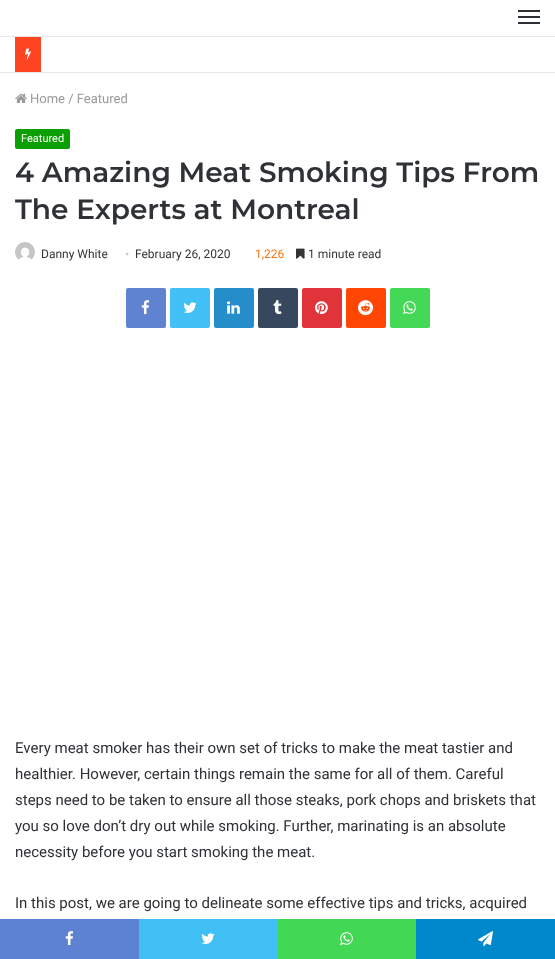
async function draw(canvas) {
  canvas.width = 555
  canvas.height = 959
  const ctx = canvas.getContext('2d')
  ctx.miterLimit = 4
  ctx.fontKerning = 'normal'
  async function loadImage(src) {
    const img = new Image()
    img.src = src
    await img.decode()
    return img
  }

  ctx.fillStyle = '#fff'
  ctx.fillRect(0, 0, 555, 959)
  ctx.fillStyle = '#2c2f34'
  ctx.fillRect(518, 16, 22, 2)
  ctx.fillRect(518, 10, 22, 2)
  ctx.fillRect(518, 22, 22, 2)
  ctx.fillStyle = '#e6e6e6'
  ctx.fillRect(0, 36, 555, 1)
  ctx.fillRect(0, 72, 555, 1)
  ctx.fillStyle = '#f42'
  ctx.fillRect(15, 37, 26, 35)
  ctx.drawImage(await loadImage('image0.png'), 25, 48, 6, 12)
  ctx.drawImage(await loadImage('image1.png'), 15, 93, 12, 10)
  ctx.font = '13px Roboto'
  ctx.fillStyle = '#9a9a9a'
  ctx.fillText('Home / Featured', 30, 103)
  ctx.fillStyle = '#0c9f04'
  ctx.beginPath()
  ctx.roundRect(15, 129, 55, 20, 2)
  ctx.fill()
  ctx.font = '11px Roboto'
  ctx.fillStyle = '#fff'
  ctx.fillText('Featured', 21, 142)
  ctx.font = '100 28px Montserrat'
  ctx.fillStyle = '#2e3136'
  ctx.fillText('4 Amazing Meat Smoking Tips From', 15, 182)
  ctx.fillText('The Experts at Montreal', 15, 219)
  ctx.drawImage(await loadImage('image2.png'), 15, 242, 20, 18)
  ctx.font = '12px Roboto'
  ctx.fillStyle = '#353535'
  ctx.fillText('Danny White', 41, 258)
  ctx.font = '12px Liberation Serif'
  ctx.fillStyle = '#cdcdcd'
  ctx.fillText('•', 125, 258)
  ctx.font = '12px Roboto'
  ctx.fillStyle = '#353535'
  ctx.fillText('February 26, 2020', 135, 258)
  ctx.fillStyle = '#f47614'
  ctx.fillText('1,226', 255, 258)
  ctx.drawImage(await loadImage('image3.png'), 296, 248, 9, 11)
  ctx.fillStyle = '#353535'
  ctx.fillText('1 minute read', 308, 258)
  ctx.fillStyle = '#5f83d1'
  ctx.beginPath()
  ctx.roundRect(126, 288, 40, 40, 2)
  ctx.fill()
  ctx.drawImage(await loadImage('image4.png'), 141, 300, 9, 15)
  ctx.fillStyle = '#42c0f5'
  ctx.beginPath()
  ctx.roundRect(170, 288, 40, 40, 2)
  ctx.fill()
  ctx.drawImage(await loadImage('image5.png'), 183, 302, 14, 11)
  ctx.fillStyle = '#258dc9'
  ctx.beginPath()
  ctx.roundRect(214, 288, 40, 40, 2)
  ctx.fill()
  ctx.drawImage(await loadImage('image6.png'), 227, 301, 13, 13)
  ctx.fillStyle = '#37485e'
  ctx.beginPath()
  ctx.roundRect(258, 288, 40, 40, 2)
  ctx.fill()
  ctx.drawImage(await loadImage('image7.png'), 273, 300, 9, 15)
  ctx.fillStyle = '#e1333a'
  ctx.beginPath()
  ctx.roundRect(302, 288, 40, 40, 2)
  ctx.fill()
  ctx.drawImage(await loadImage('image8.png'), 315, 301, 13, 14)
  ctx.fillStyle = '#ff4703'
  ctx.beginPath()
  ctx.roundRect(346, 288, 40, 40, 2)
  ctx.fill()
  ctx.drawImage(await loadImage('image9.png'), 358, 300, 15, 16)
  ctx.fillStyle = '#45d856'
  ctx.beginPath()
  ctx.roundRect(390, 288, 40, 40, 2)
  ctx.fill()
  ctx.drawImage(await loadImage('image10.png'), 403, 301, 13, 13)
  ctx.font = '15px Roboto'
  ctx.fillStyle = '#2e3136'
  ctx.fillText('Every meat smoker has their own set of tricks to make the meat tastier and', 15, 753)
  ctx.fillText('healthier. However, certain things remain the same for all of them. Careful', 15, 779)
  ctx.fillText('steps need to be taken to ensure all those steaks, pork chops and briskets that', 15, 805)
  ctx.fillText('you so love don’t dry out while smoking. Further, marinating is an absolute', 15, 831)
  ctx.fillText('necessity before you start smoking the meat.', 15, 857)
  ctx.fillText('In this post, we are going to delineate some effective tips and tricks, acquired', 15, 908)
  ctx.fillStyle = '#5d82d1'
  ctx.fillRect(0, 919, 139, 40)
  ctx.drawImage(await loadImage('image11.png'), 65, 931, 9, 15)
  ctx.fillStyle = '#40bff5'
  ctx.fillRect(139, 919, 139, 40)
  ctx.drawImage(await loadImage('image12.png'), 201, 933, 14, 11)
  ctx.fillStyle = '#43d854'
  ctx.fillRect(278, 919, 138, 40)
  ctx.drawImage(await loadImage('image13.png'), 340, 932, 13, 13)
  ctx.fillStyle = '#08c'
  ctx.fillRect(416, 919, 139, 40)
  ctx.drawImage(await loadImage('image14.png'), 478, 931, 15, 16)
}

draw(document.querySelector('canvas'))
